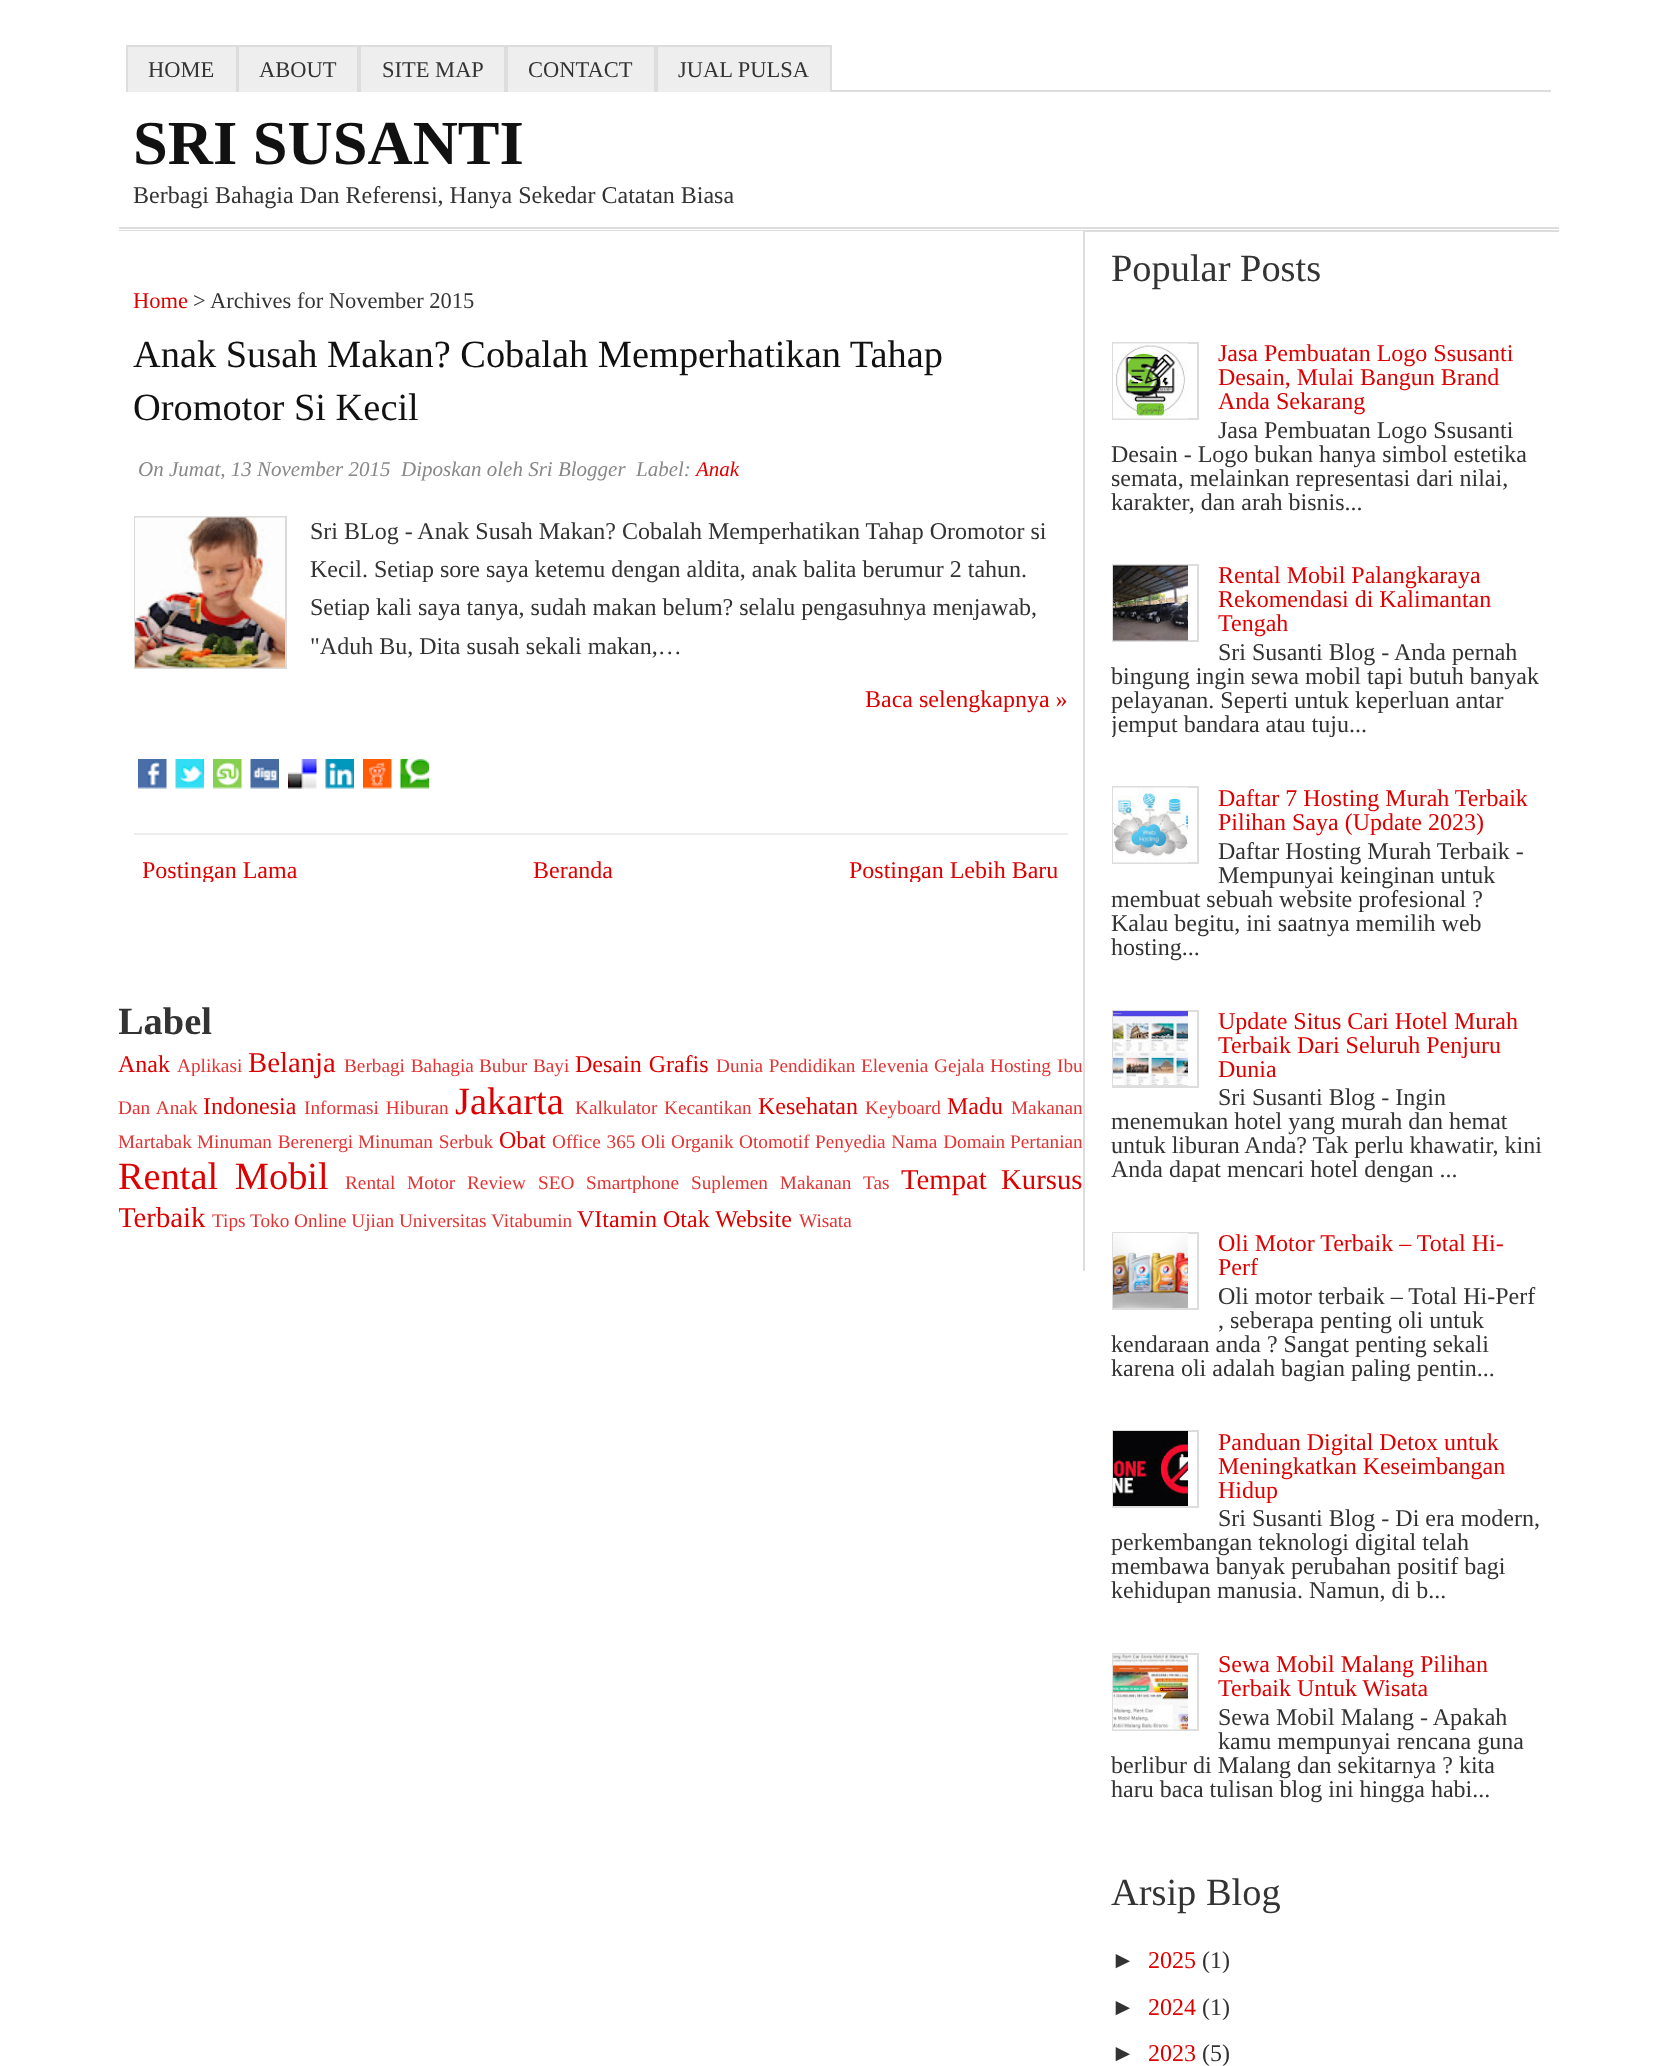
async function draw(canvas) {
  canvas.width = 1675
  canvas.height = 2066
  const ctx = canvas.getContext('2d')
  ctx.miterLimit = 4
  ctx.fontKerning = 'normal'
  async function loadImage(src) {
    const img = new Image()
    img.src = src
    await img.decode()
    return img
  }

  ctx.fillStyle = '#fff'
  ctx.fillRect(0, 0, 1675, 2066)
  ctx.fillStyle = '#ddd'
  ctx.fillRect(832, 90, 719, 2)
  ctx.fillStyle = '#eee'
  ctx.fillRect(128, 47, 108, 45)
  ctx.fillStyle = '#ddd'
  ctx.fillRect(126, 45, 705, 2)
  ctx.fillRect(236, 45, 3, 47)
  ctx.fillRect(126, 45, 2, 47)
  ctx.font = '22.5px Liberation Serif'
  ctx.fillStyle = '#333'
  ctx.fillText('HOME', 148, 77)
  ctx.fillStyle = '#eee'
  ctx.fillRect(239, 47, 118, 45)
  ctx.fillStyle = '#ddd'
  ctx.fillRect(357, 45, 4, 47)
  ctx.fillStyle = '#333'
  ctx.fillText('ABOUT', 259, 77)
  ctx.fillStyle = '#eee'
  ctx.fillRect(361, 47, 143, 45)
  ctx.fillStyle = '#ddd'
  ctx.fillRect(504, 45, 4, 47)
  ctx.fillStyle = '#333'
  ctx.fillText('SITE MAP', 382, 77)
  ctx.fillStyle = '#eee'
  ctx.fillRect(508, 47, 146, 45)
  ctx.fillStyle = '#ddd'
  ctx.fillRect(654, 45, 4, 47)
  ctx.fillStyle = '#333'
  ctx.fillText('CONTACT', 528, 77)
  ctx.fillStyle = '#eee'
  ctx.fillRect(658, 47, 172, 45)
  ctx.fillStyle = '#ddd'
  ctx.fillRect(830, 45, 2, 47)
  ctx.fillStyle = '#333'
  ctx.fillText('JUAL PULSA', 678, 77)
  ctx.font = 'bold 62.5px Liberation Serif'
  ctx.fillStyle = '#111'
  ctx.fillText('SRI SUSANTI', 133, 164)
  ctx.font = '24px Liberation Serif'
  ctx.fillStyle = '#333'
  ctx.fillText('Berbagi Bahagia Dan Referensi, Hanya Sekedar Catatan Biasa', 133, 203)
  ctx.fillStyle = '#ddd'
  ctx.fillRect(119, 227, 1440, 2)
  ctx.fillRect(119, 230, 1440, 2)
  ctx.fillStyle = '#fff'
  ctx.fillRect(119, 231, 964, 1)
  ctx.fillStyle = '#ddd'
  ctx.fillRect(1083, 231, 2, 1040)
  ctx.font = '22.5px Liberation Serif'
  ctx.fillStyle = '#d00'
  ctx.fillText('Home', 133, 308)
  ctx.fillStyle = '#333'
  ctx.fillText('> Archives for November 2015', 193, 308)
  ctx.fillStyle = '#eee'
  ctx.fillRect(134, 833, 934, 2)
  ctx.font = '38.4px Liberation Serif'
  ctx.fillStyle = '#111'
  ctx.fillText('Anak Susah Makan? Cobalah Memperhatikan Tahap', 133, 367)
  ctx.fillText('Oromotor Si Kecil', 133, 420)
  ctx.font = 'italic 21px Liberation Serif'
  ctx.fillStyle = '#888'
  ctx.fillText('On Jumat, 13 November 2015', 138, 476)
  ctx.fillText('Diposkan oleh Sri Blogger', 401, 476)
  ctx.fillText('Label:', 636, 476)
  ctx.fillStyle = '#d00'
  ctx.fillText('Anak', 696, 476)
  ctx.strokeStyle = '#dcd9d9'
  ctx.lineWidth = 2
  ctx.strokeRect(135, 517, 151, 151)
  ctx.drawImage(await loadImage('image0.png'), 135, 517, 150, 151)
  ctx.font = '24px Liberation Serif'
  ctx.fillStyle = '#333'
  ctx.fillText('Sri BLog - Anak Susah Makan? Cobalah Memperhatikan Tahap Oromotor si', 310, 539)
  ctx.fillText('Kecil. Setiap sore saya ketemu dengan aldita, anak balita berumur 2 tahun.', 310, 577)
  ctx.fillText('Setiap kali saya tanya, sudah makan belum? selalu pengasuhnya menjawab,', 310, 615)
  ctx.fillText('"Aduh Bu, Dita susah sekali makan,…', 310, 654)
  ctx.fillStyle = '#d00'
  ctx.fillText('Baca selengkapnya »', 865, 707)
  ctx.drawImage(await loadImage('image1.png'), 138, 759, 29, 30)
  ctx.drawImage(await loadImage('image2.png'), 175, 759, 29, 30)
  ctx.drawImage(await loadImage('image3.png'), 213, 759, 29, 30)
  ctx.drawImage(await loadImage('image4.png'), 250, 759, 29, 30)
  ctx.drawImage(await loadImage('image5.png'), 288, 759, 29, 30)
  ctx.drawImage(await loadImage('image6.png'), 325, 759, 29, 30)
  ctx.drawImage(await loadImage('image7.png'), 363, 759, 29, 30)
  ctx.drawImage(await loadImage('image8.png'), 400, 759, 29, 30)
  ctx.save()
  ctx.beginPath()
  ctx.rect(143, 858, 916, 24)
  ctx.clip()
  ctx.fillText('Postingan Lama', 142, 878)
  ctx.restore()
  ctx.fillText('Beranda', 533, 878)
  ctx.save()
  ctx.beginPath()
  ctx.rect(143, 858, 916, 24)
  ctx.clip()
  ctx.fillText('Postingan Lebih Baru', 849, 878)
  ctx.restore()
  ctx.save()
  ctx.beginPath()
  ctx.rect(119, 231, 964, 1040)
  ctx.clip()
  ctx.font = 'bold 38.4px Liberation Serif'
  ctx.fillStyle = '#333'
  ctx.fillText('Label', 118, 1034)
  ctx.restore()
  ctx.fillText('Anak', 118, 1072)
  ctx.font = '19.25px Liberation Serif'
  ctx.fillStyle = '#e43333'
  ctx.fillText('Aplikasi', 177, 1072)
  ctx.font = '28.75px Liberation Serif'
  ctx.fillStyle = '#d00'
  ctx.fillText('Belanja', 248, 1072)
  ctx.wordSpacing = '1px'
  ctx.font = '19.25px Liberation Serif'
  ctx.fillStyle = '#e43333'
  ctx.fillText('Berbagi Bahagia', 344, 1072)
  ctx.fillText('Bubur Bayi', 479, 1072)
  ctx.font = '24px Liberation Serif'
  ctx.fillStyle = '#d00'
  ctx.fillText('Desain Grafis', 575, 1072)
  ctx.font = '19.25px Liberation Serif'
  ctx.fillStyle = '#e43333'
  ctx.fillText('Dunia Pendidikan', 716, 1072)
  ctx.wordSpacing = '0px'
  ctx.fillText('Elevenia', 861, 1072)
  ctx.fillText('Gejala', 934, 1072)
  ctx.fillText('Hosting', 990, 1072)
  ctx.fillText('Ibu', 1057, 1072)
  ctx.wordSpacing = '2px'
  ctx.fillText('Dan Anak', 118, 1114)
  ctx.wordSpacing = '0px'
  ctx.font = '24px Liberation Serif'
  ctx.fillStyle = '#d00'
  ctx.fillText('Indonesia', 203, 1114)
  ctx.wordSpacing = '2px'
  ctx.font = '19.25px Liberation Serif'
  ctx.fillStyle = '#e43333'
  ctx.fillText('Informasi Hiburan', 304, 1114)
  ctx.wordSpacing = '0px'
  ctx.font = '38.4px Liberation Serif'
  ctx.fillStyle = '#d00'
  ctx.fillText('Jakarta', 455, 1114)
  ctx.font = '19.25px Liberation Serif'
  ctx.fillStyle = '#e43333'
  ctx.fillText('Kalkulator', 575, 1114)
  ctx.fillText('Kecantikan', 664, 1114)
  ctx.font = '24px Liberation Serif'
  ctx.fillStyle = '#d00'
  ctx.fillText('Kesehatan', 758, 1114)
  ctx.font = '19.25px Liberation Serif'
  ctx.fillStyle = '#e43333'
  ctx.fillText('Keyboard', 865, 1114)
  ctx.font = '24px Liberation Serif'
  ctx.fillStyle = '#d00'
  ctx.fillText('Madu', 947, 1114)
  ctx.font = '19.25px Liberation Serif'
  ctx.fillStyle = '#e43333'
  ctx.fillText('Makanan', 1011, 1114)
  ctx.fillText('Martabak', 118, 1148)
  ctx.wordSpacing = '1px'
  ctx.fillText('Minuman Berenergi', 197, 1148)
  ctx.fillText('Minuman Serbuk', 358, 1148)
  ctx.wordSpacing = '0px'
  ctx.font = '24px Liberation Serif'
  ctx.fillStyle = '#d00'
  ctx.fillText('Obat', 499, 1148)
  ctx.wordSpacing = '1px'
  ctx.font = '19.25px Liberation Serif'
  ctx.fillStyle = '#e43333'
  ctx.fillText('Office 365', 552, 1148)
  ctx.wordSpacing = '0px'
  ctx.fillText('Oli', 641, 1148)
  ctx.fillText('Organik', 671, 1148)
  ctx.fillText('Otomotif', 739, 1148)
  ctx.wordSpacing = '1px'
  ctx.fillText('Penyedia Nama Domain', 815, 1148)
  ctx.wordSpacing = '0px'
  ctx.fillText('Pertanian', 1010, 1148)
  ctx.wordSpacing = '7px'
  ctx.font = '38.4px Liberation Serif'
  ctx.fillStyle = '#d00'
  ctx.fillText('Rental Mobil', 118, 1189)
  ctx.font = '19.25px Liberation Serif'
  ctx.fillStyle = '#e43333'
  ctx.fillText('Rental Motor', 345, 1189)
  ctx.wordSpacing = '0px'
  ctx.fillText('Review', 467, 1189)
  ctx.fillText('SEO', 538, 1189)
  ctx.fillText('Smartphone', 586, 1189)
  ctx.wordSpacing = '7px'
  ctx.fillText('Suplemen Makanan', 691, 1189)
  ctx.wordSpacing = '0px'
  ctx.fillText('Tas', 863, 1189)
  ctx.wordSpacing = '7px'
  ctx.font = '28.75px Liberation Serif'
  ctx.fillStyle = '#d00'
  ctx.fillText('Tempat Kursus', 901, 1189)
  ctx.save()
  ctx.beginPath()
  ctx.rect(119, 231, 964, 1040)
  ctx.clip()
  ctx.wordSpacing = '0px'
  ctx.fillText('Terbaik', 118, 1227)
  ctx.restore()
  ctx.wordSpacing = '0px'
  ctx.font = '19.25px Liberation Serif'
  ctx.fillStyle = '#e43333'
  ctx.fillText('Tips Toko Online Ujian Universitas Vitabumin', 212, 1227)
  ctx.font = '24px Liberation Serif'
  ctx.fillStyle = '#d00'
  ctx.fillText('VItamin Otak Website', 577, 1227)
  ctx.font = '19.25px Liberation Serif'
  ctx.fillStyle = '#e43333'
  ctx.fillText('Wisata', 799, 1227)
  ctx.font = '38.4px Liberation Serif'
  ctx.fillStyle = '#333'
  ctx.fillText('Popular Posts', 1111, 281)
  ctx.strokeStyle = '#ddd'
  ctx.strokeRect(1113, 343, 85, 76)
  ctx.drawImage(await loadImage('image9.png'), 1113, 343, 75, 76)
  ctx.font = '24px Liberation Serif'
  ctx.fillStyle = '#d00'
  ctx.fillText('Jasa Pembuatan Logo Ssusanti', 1218, 361)
  ctx.fillText('Desain, Mulai Bangun Brand', 1218, 385)
  ctx.fillText('Anda Sekarang', 1218, 409)
  ctx.fillStyle = '#333'
  ctx.fillText('Jasa Pembuatan Logo Ssusanti', 1218, 438)
  ctx.fillText('Desain - Logo bukan hanya simbol estetika', 1111, 462)
  ctx.fillText('semata, melainkan representasi dari nilai,', 1111, 486)
  ctx.fillText('karakter, dan arah bisnis...', 1111, 510)
  ctx.strokeRect(1113, 565, 85, 76)
  ctx.drawImage(await loadImage('image10.png'), 1113, 565, 75, 76)
  ctx.fillStyle = '#d00'
  ctx.fillText('Rental Mobil Palangkaraya', 1218, 583)
  ctx.fillText('Rekomendasi di Kalimantan', 1218, 607)
  ctx.fillText('Tengah', 1218, 631)
  ctx.fillStyle = '#333'
  ctx.fillText('Sri Susanti Blog - Anda pernah', 1218, 660)
  ctx.fillText('bingung ingin sewa mobil tapi butuh banyak', 1111, 684)
  ctx.fillText('pelayanan. Seperti untuk keperluan antar', 1111, 708)
  ctx.save()
  ctx.beginPath()
  ctx.rect(1112, 548, 432, 205)
  ctx.clip()
  ctx.fillText('jemput bandara atau tuju...', 1111, 732)
  ctx.restore()
  ctx.strokeRect(1113, 787, 85, 76)
  ctx.drawImage(await loadImage('image11.png'), 1113, 787, 75, 76)
  ctx.fillStyle = '#d00'
  ctx.fillText('Daftar 7 Hosting Murah Terbaik', 1218, 806)
  ctx.fillText('Pilihan Saya (Update 2023)', 1218, 830)
  ctx.fillStyle = '#333'
  ctx.fillText('Daftar Hosting Murah Terbaik -', 1218, 859)
  ctx.fillText('Mempunyai keinginan untuk', 1218, 883)
  ctx.fillText('membuat sebuah website profesional ?', 1111, 907)
  ctx.fillText('Kalau begitu, ini saatnya memilih web', 1111, 931)
  ctx.fillText('hosting...', 1111, 955)
  ctx.strokeRect(1113, 1011, 85, 76)
  ctx.drawImage(await loadImage('image12.png'), 1113, 1011, 75, 75)
  ctx.fillStyle = '#d00'
  ctx.fillText('Update Situs Cari Hotel Murah', 1218, 1029)
  ctx.fillText('Terbaik Dari Seluruh Penjuru', 1218, 1053)
  ctx.fillText('Dunia', 1218, 1077)
  ctx.fillStyle = '#333'
  ctx.fillText('Sri Susanti Blog - Ingin', 1218, 1105)
  ctx.fillText('menemukan hotel yang murah dan hemat', 1111, 1129)
  ctx.fillText('untuk liburan Anda? Tak perlu khawatir, kini', 1111, 1153)
  ctx.fillText('Anda dapat mencari hotel dengan ...', 1111, 1177)
  ctx.strokeRect(1113, 1233, 85, 76)
  ctx.drawImage(await loadImage('image13.png'), 1113, 1233, 75, 75)
  ctx.fillStyle = '#d00'
  ctx.fillText('Oli Motor Terbaik – Total Hi-', 1218, 1251)
  ctx.fillText('Perf', 1218, 1275)
  ctx.fillStyle = '#333'
  ctx.fillText('Oli motor terbaik – Total Hi-Perf', 1218, 1304)
  ctx.fillText(', seberapa penting oli untuk', 1218, 1328)
  ctx.fillText('kendaraan anda ? Sangat penting sekali', 1111, 1352)
  ctx.fillText('karena oli adalah bagian paling pentin...', 1111, 1376)
  ctx.strokeRect(1113, 1431, 85, 76)
  ctx.drawImage(await loadImage('image14.png'), 1113, 1431, 75, 75)
  ctx.fillStyle = '#d00'
  ctx.fillText('Panduan Digital Detox untuk', 1218, 1450)
  ctx.fillText('Meningkatkan Keseimbangan', 1218, 1474)
  ctx.fillText('Hidup', 1218, 1498)
  ctx.fillStyle = '#333'
  ctx.fillText('Sri Susanti Blog - Di era modern,', 1218, 1526)
  ctx.fillText('perkembangan teknologi digital telah', 1111, 1550)
  ctx.fillText('membawa banyak perubahan positif bagi', 1111, 1574)
  ctx.fillText('kehidupan manusia. Namun, di b...', 1111, 1598)
  ctx.strokeRect(1113, 1654, 85, 76)
  ctx.drawImage(await loadImage('image15.png'), 1113, 1654, 75, 76)
  ctx.fillStyle = '#d00'
  ctx.fillText('Sewa Mobil Malang Pilihan', 1218, 1672)
  ctx.fillText('Terbaik Untuk Wisata', 1218, 1696)
  ctx.fillStyle = '#333'
  ctx.fillText('Sewa Mobil Malang - Apakah', 1218, 1725)
  ctx.fillText('kamu mempunyai rencana guna', 1218, 1749)
  ctx.fillText('berlibur di Malang dan sekitarnya ? kita', 1111, 1773)
  ctx.fillText('haru baca tulisan blog ini hingga habi...', 1111, 1797)
  ctx.font = '38.4px Liberation Serif'
  ctx.fillText('Arsip Blog', 1111, 1905)
  ctx.font = '24px Liberation Sans'
  ctx.fillText('►', 1111, 1968)
  ctx.font = '24px Liberation Serif'
  ctx.fillStyle = '#d00'
  ctx.fillText('2025', 1148, 1968)
  ctx.fillStyle = '#333'
  ctx.fillText('(1)', 1202, 1968)
  ctx.font = '24px Liberation Sans'
  ctx.fillText('►', 1111, 2015)
  ctx.font = '24px Liberation Serif'
  ctx.fillStyle = '#d00'
  ctx.fillText('2024', 1148, 2015)
  ctx.fillStyle = '#333'
  ctx.fillText('(1)', 1202, 2015)
  ctx.font = '24px Liberation Sans'
  ctx.fillText('►', 1111, 2061)
  ctx.font = '24px Liberation Serif'
  ctx.fillStyle = '#d00'
  ctx.fillText('2023', 1148, 2061)
  ctx.fillStyle = '#333'
  ctx.fillText('(5)', 1202, 2061)
}

draw(document.querySelector('canvas'))
